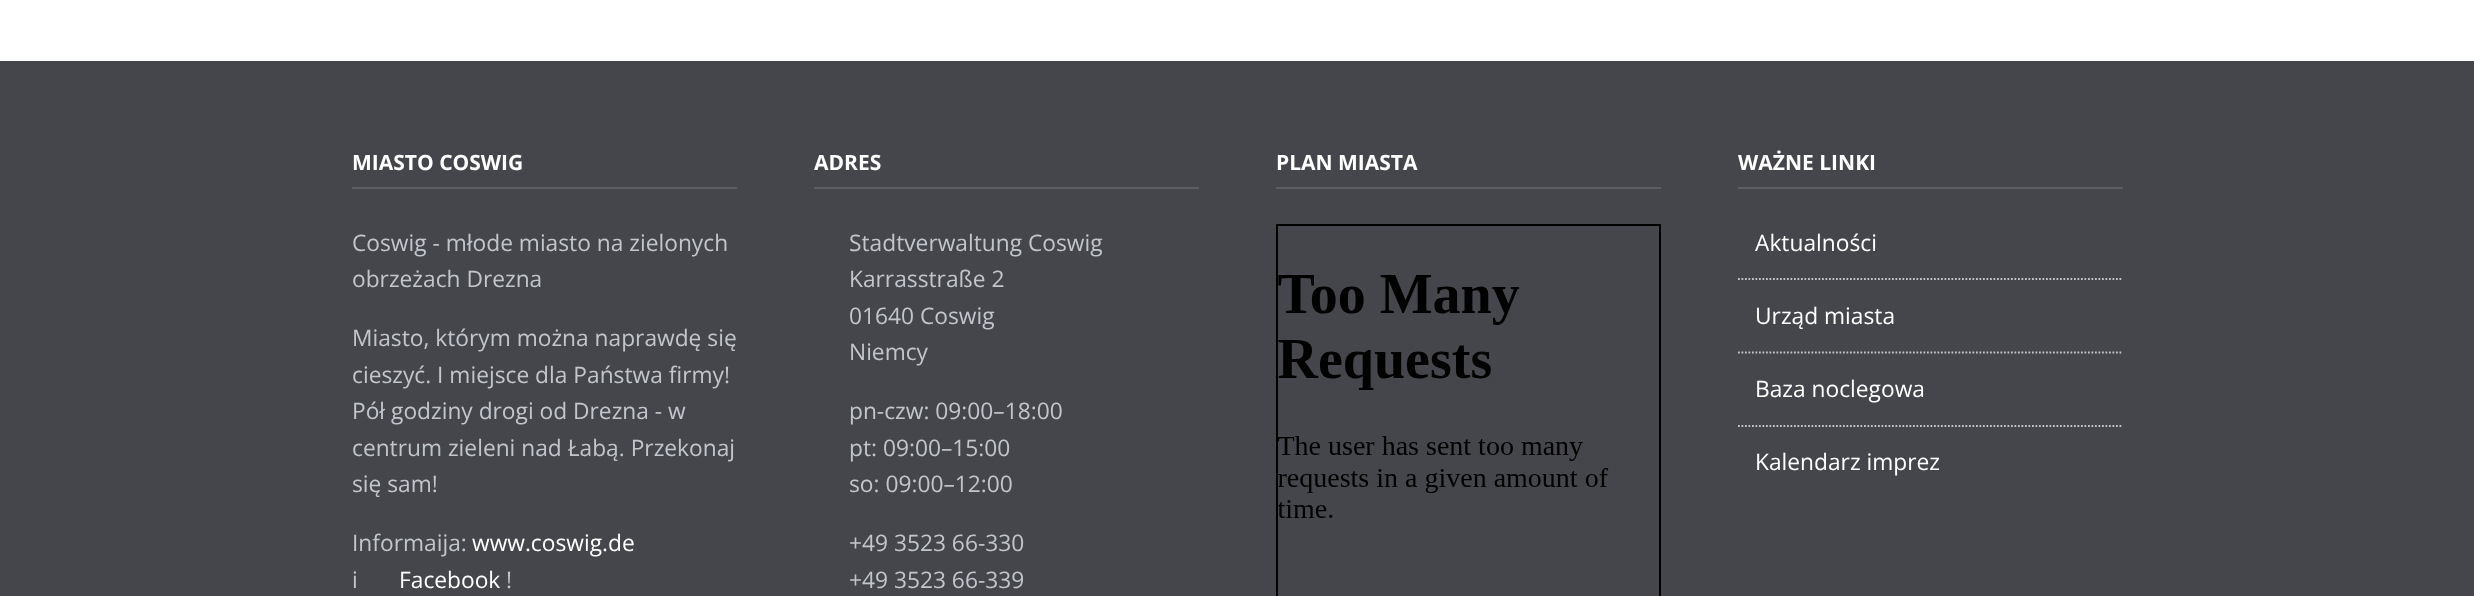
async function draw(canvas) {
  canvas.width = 2474
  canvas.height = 596
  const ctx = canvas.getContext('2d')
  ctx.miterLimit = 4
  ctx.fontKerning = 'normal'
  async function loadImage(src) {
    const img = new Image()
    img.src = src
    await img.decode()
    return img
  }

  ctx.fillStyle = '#fff'
  ctx.fillRect(0, 0, 2474, 596)
  ctx.fillStyle = '#44464b'
  ctx.fillRect(0, 61, 2474, 535)
  ctx.fillStyle = '#5a5d63'
  ctx.fillRect(352, 187, 385, 2)
  ctx.font = 'bold 21px Open Sans'
  ctx.fillStyle = '#fff'
  ctx.fillText('MIASTO COSWIG', 352, 170)
  ctx.font = '22.75px Open Sans'
  ctx.fillStyle = '#c2c6cc'
  ctx.fillText('Coswig - młode miasto na zielonych', 352, 251)
  ctx.fillText('obrzeżach Drezna', 352, 287)
  ctx.fillText('Miasto, którym można naprawdę się', 352, 346)
  ctx.fillText('cieszyć. I miejsce dla Państwa firmy!', 352, 383)
  ctx.fillText('Pół godziny drogi od Drezna - w', 352, 419)
  ctx.fillText('centrum zieleni nad Łabą. Przekonaj', 352, 456)
  ctx.fillText('się sam!', 352, 492)
  ctx.fillText('Informaija:', 352, 551)
  ctx.fillStyle = '#fff'
  ctx.fillText('www.coswig.de', 472, 551)
  ctx.fillStyle = '#c2c6cc'
  ctx.fillText('i', 352, 588)
  ctx.fillStyle = '#fff'
  ctx.fillText('Facebook', 399, 588)
  ctx.fillStyle = '#c2c6cc'
  ctx.fillText('!', 506, 588)
  ctx.fillStyle = '#5a5d63'
  ctx.fillRect(814, 187, 385, 2)
  ctx.font = 'bold 21px Open Sans'
  ctx.fillStyle = '#fff'
  ctx.fillText('ADRES', 814, 170)
  ctx.font = '22.75px Open Sans'
  ctx.fillStyle = '#c2c6cc'
  ctx.fillText('Stadtverwaltung Coswig', 849, 251)
  ctx.fillText('Karrasstraße 2', 849, 287)
  ctx.fillText('01640 Coswig', 849, 324)
  ctx.fillText('Niemcy', 849, 360)
  ctx.fillText('pn-czw: 09:00–18:00', 849, 419)
  ctx.fillText('pt: 09:00–15:00', 849, 456)
  ctx.fillText('so: 09:00–12:00', 849, 492)
  ctx.fillText('+49 3523 66-330', 849, 551)
  ctx.fillText('+49 3523 66-339', 849, 588)
  ctx.fillStyle = '#5a5d63'
  ctx.fillRect(1276, 187, 385, 2)
  ctx.font = 'bold 21px Open Sans'
  ctx.fillStyle = '#fff'
  ctx.fillText('PLAN MIASTA', 1276, 170)
  ctx.strokeStyle = '#000'
  ctx.lineWidth = 2
  ctx.strokeRect(1277, 225, 383, 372)
  ctx.drawImage(await loadImage('image0.png'), 1278, 275, 331, 243)
  ctx.fillStyle = '#5a5d63'
  ctx.fillRect(1738, 187, 385, 2)
  ctx.fillStyle = '#fff'
  ctx.fillText('WAŻNE LINKI', 1738, 170)
  ctx.font = '22.75px Open Sans'
  ctx.fillText('Aktualności', 1755, 251)
  ctx.beginPath()
  ctx.moveTo(1738, 279)
  ctx.lineTo(2123, 279)
  ctx.strokeStyle = '#c2c6cc'
  ctx.lineWidth = 1.8
  ctx.setLineDash([1.75, 1.75])
  ctx.stroke()
  ctx.fillText('Urząd miasta', 1755, 324)
  ctx.beginPath()
  ctx.moveTo(1738, 352.5)
  ctx.lineTo(2123, 352.5)
  ctx.stroke()
  ctx.fillText('Baza noclegowa', 1755, 397)
  ctx.beginPath()
  ctx.moveTo(1738, 426)
  ctx.lineTo(2123, 426)
  ctx.stroke()
  ctx.fillText('Kalendarz imprez', 1755, 470)
}

draw(document.querySelector('canvas'))
